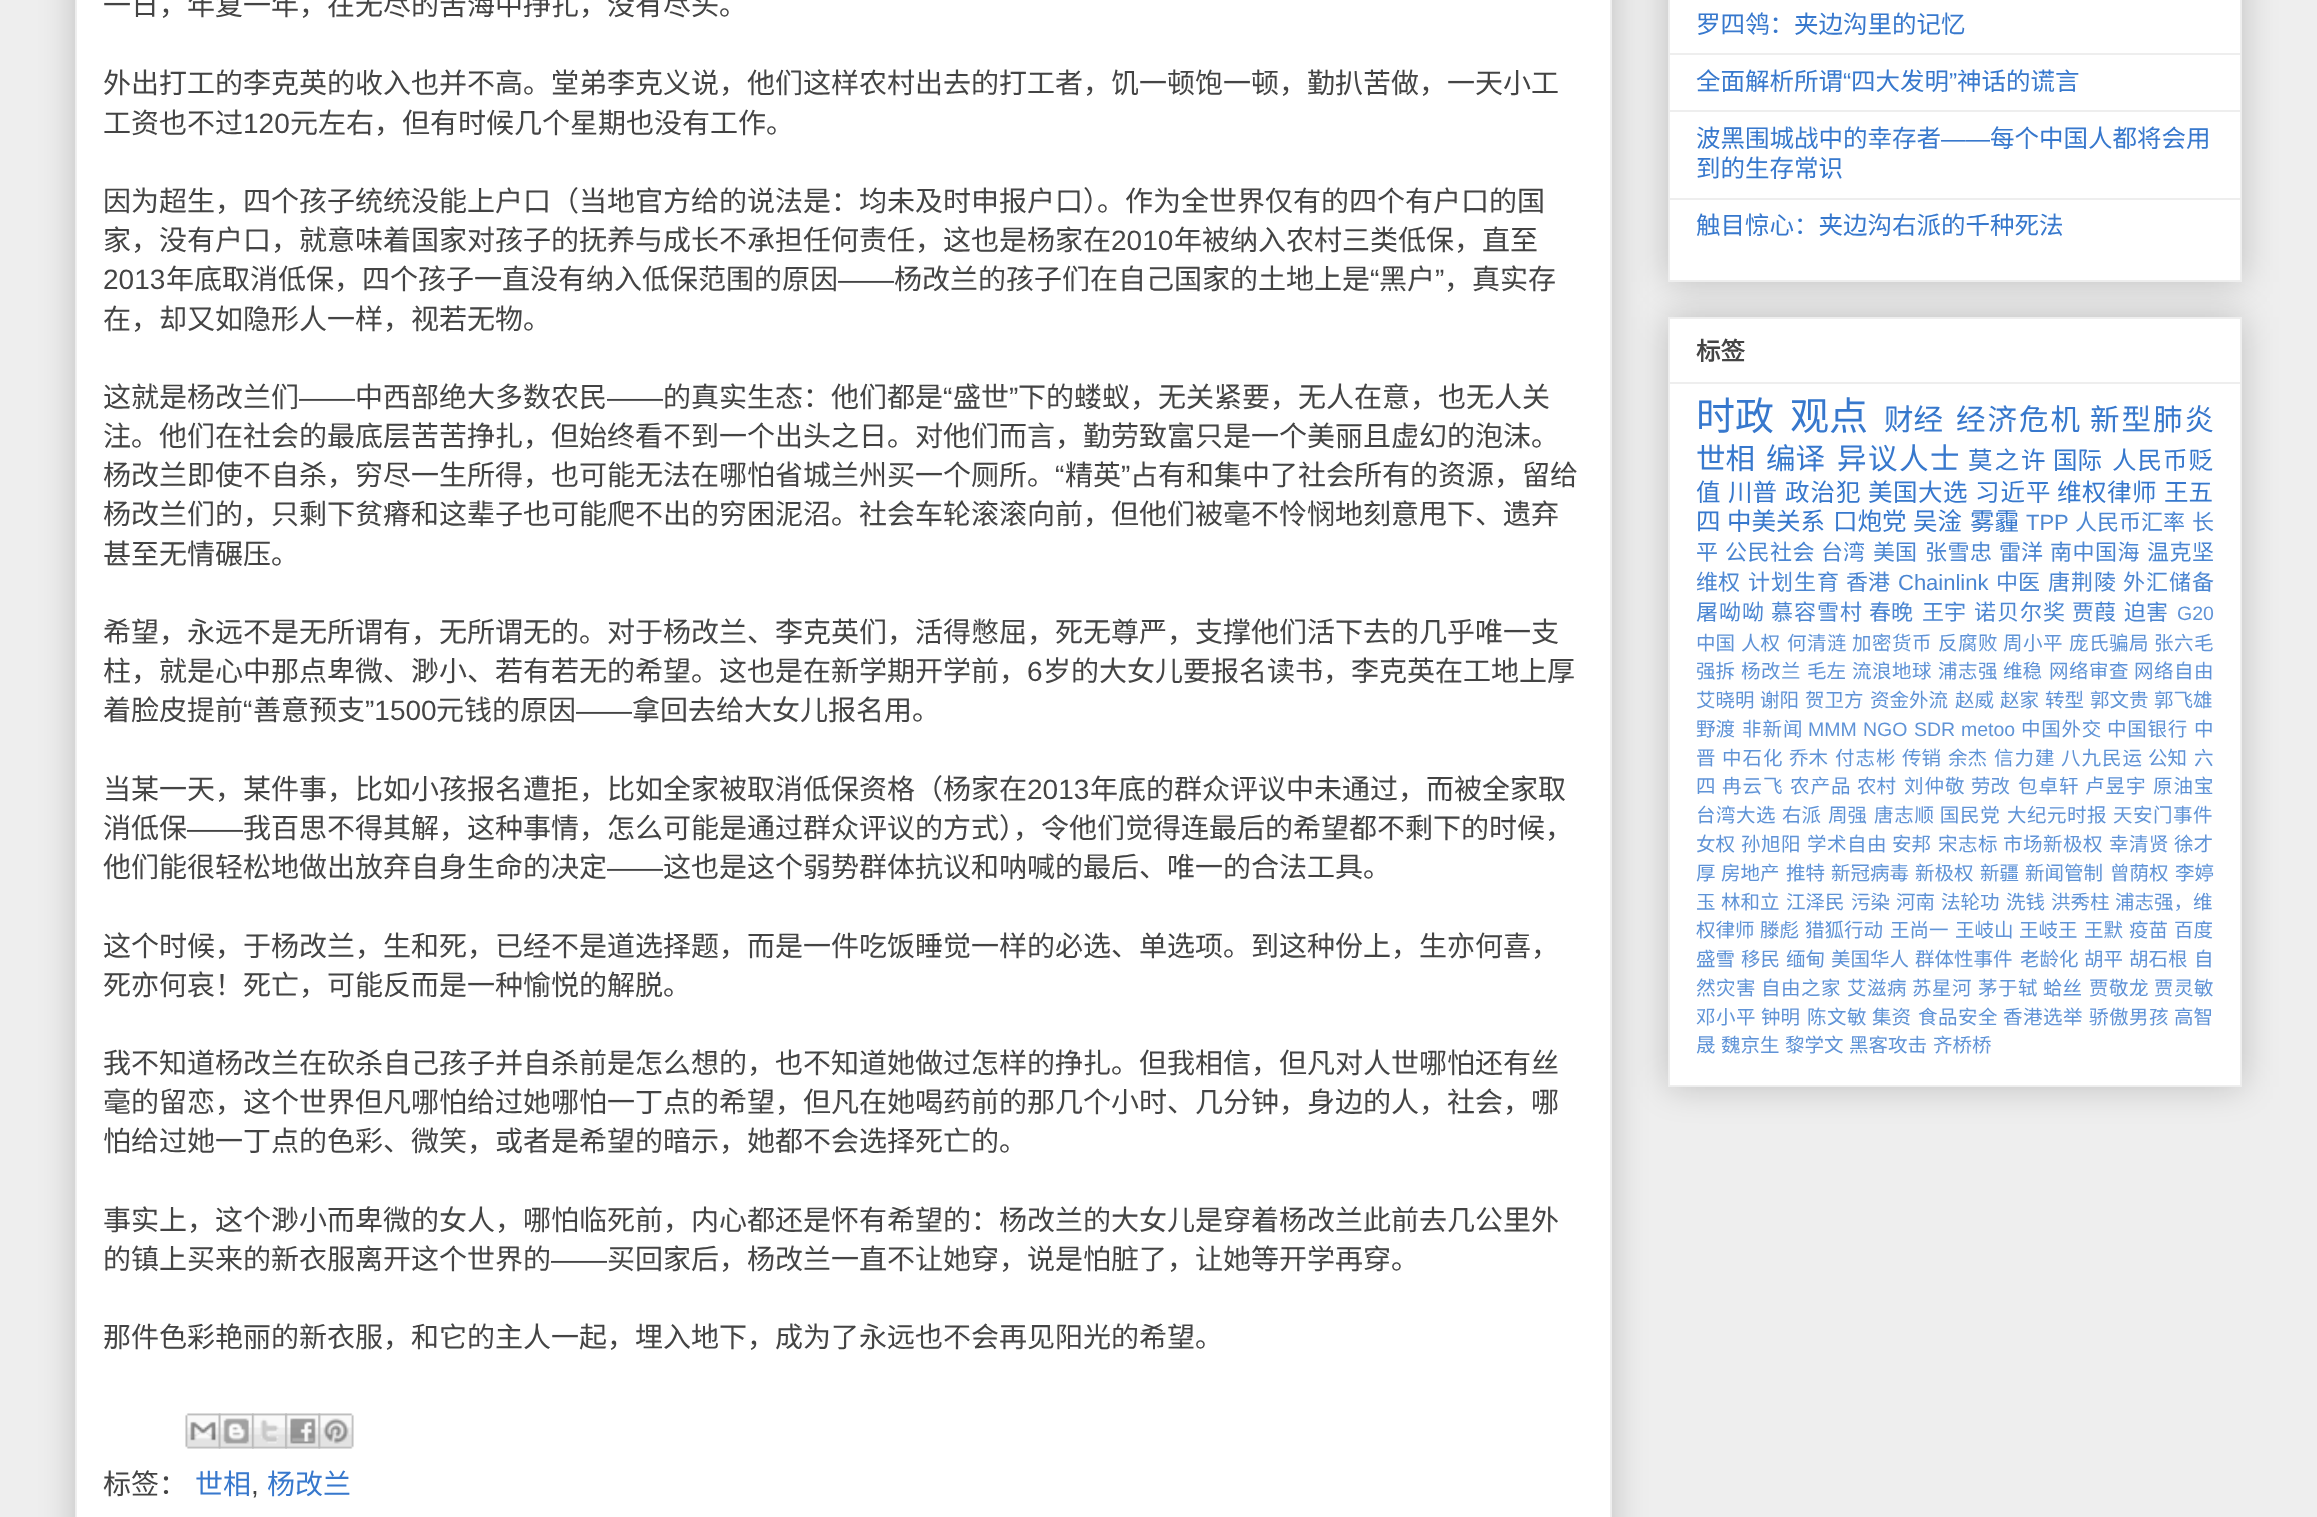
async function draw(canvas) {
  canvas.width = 2317
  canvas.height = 1517
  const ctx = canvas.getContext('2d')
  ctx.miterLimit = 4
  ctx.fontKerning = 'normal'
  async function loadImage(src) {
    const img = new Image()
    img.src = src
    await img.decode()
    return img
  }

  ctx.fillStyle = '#eee'
  ctx.fillRect(0, 0, 2317, 1517)
  ctx.fillStyle = '#00000033'
  ctx.filter = 'blur(17.5px)'
  ctx.beginPath()
  ctx.rect(75, -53, 1537, 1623)
  ctx.fill()
  ctx.filter = 'none'
  ctx.fillStyle = '#fff'
  ctx.beginPath()
  ctx.rect(76, -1, 1535, 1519)
  ctx.fill()
  ctx.strokeStyle = '#eee'
  ctx.lineWidth = 2
  ctx.stroke()
  ctx.font = '28px Noto Sans CJK SC'
  ctx.fillStyle = '#444'
  ctx.fillText('一日，年复一年，在无尽的苦海中挣扎，没有尽头。', 103, 15)
  ctx.fillText('外出打工的李克英的收入也并不高。堂弟李克义说，他们这样农村出去的打工者，饥一顿饱一顿，勤扒苦做，一天小工', 103, 93)
  ctx.fillText('工资也不过', 103, 133)
  ctx.font = '28px Liberation Sans'
  ctx.fillText('120', 243, 133)
  ctx.font = '28px Noto Sans CJK SC'
  ctx.fillText('元左右，但有时候几个星期也没有工作。', 290, 133)
  ctx.fillText('因为超生，四个孩子统统没能上户口（当地官方给的说法是：均未及时申报户口）。作为全世界仅有的四个有户口的国', 103, 211)
  ctx.fillText('家，没有户口，就意味着国家对孩子的抚养与成长不承担任何责任，这也是杨家在', 103, 250)
  ctx.font = '28px Liberation Sans'
  ctx.fillText('2010', 1111, 250)
  ctx.font = '28px Noto Sans CJK SC'
  ctx.fillText('年被纳入农村三类低保，直至', 1174, 250)
  ctx.font = '28px Liberation Sans'
  ctx.fillText('2013', 103, 289)
  ctx.font = '28px Noto Sans CJK SC'
  ctx.fillText('年底取消低保，四个孩子一直没有纳入低保范围的原因', 166, 289)
  ctx.fillText('杨改兰的孩子们在自己国家的土地上是', 894, 289)
  ctx.font = '28px Liberation Sans'
  ctx.fillText('“', 1370, 289)
  ctx.font = '28px Noto Sans CJK SC'
  ctx.fillText('黑户', 1379, 289)
  ctx.font = '28px Liberation Sans'
  ctx.fillText('”', 1435, 289)
  ctx.font = '28px Noto Sans CJK SC'
  ctx.fillText('，真实存', 1444, 289)
  ctx.font = '28px Liberation Sans'
  ctx.fillText('——', 838, 289)
  ctx.font = '28px Noto Sans CJK SC'
  ctx.fillText('在，却又如隐形人一样，视若无物。', 103, 329)
  ctx.fillText('这就是杨改兰们', 103, 407)
  ctx.fillText('中西部绝大多数农民', 355, 407)
  ctx.fillText('的真实生态：他们都是', 663, 407)
  ctx.font = '28px Liberation Sans'
  ctx.fillText('“', 943, 407)
  ctx.font = '28px Noto Sans CJK SC'
  ctx.fillText('盛世', 953, 407)
  ctx.font = '28px Liberation Sans'
  ctx.fillText('”', 1009, 407)
  ctx.font = '28px Noto Sans CJK SC'
  ctx.fillText('下的蝼蚁，无关紧要，无人在意，也无人关', 1018, 407)
  ctx.font = '28px Liberation Sans'
  ctx.fillText('——', 299, 407)
  ctx.fillText('——', 607, 407)
  ctx.font = '28px Noto Sans CJK SC'
  ctx.fillText('注。他们在社会的最底层苦苦挣扎，但始终看不到一个出头之日。对他们而言，勤劳致富只是一个美丽且虚幻的泡沫。', 103, 446)
  ctx.fillText('杨改兰即使不自杀，穷尽一生所得，也可能无法在哪怕省城兰州买一个厕所。', 103, 485)
  ctx.font = '28px Liberation Sans'
  ctx.fillText('“', 1055, 485)
  ctx.font = '28px Noto Sans CJK SC'
  ctx.fillText('精英', 1065, 485)
  ctx.font = '28px Liberation Sans'
  ctx.fillText('”', 1121, 485)
  ctx.font = '28px Noto Sans CJK SC'
  ctx.fillText('占有和集中了社会所有的资源，留给', 1130, 485)
  ctx.fillText('杨改兰们的，只剩下贫瘠和这辈子也可能爬不出的穷困泥沼。社会车轮滚滚向前，但他们被毫不怜悯地刻意甩下、遗弃', 103, 524)
  ctx.fillText('甚至无情碾压。', 103, 564)
  ctx.fillText('希望，永远不是无所谓有，无所谓无的。对于杨改兰、李克英们，活得憋屈，死无尊严，支撑他们活下去的几乎唯一支', 103, 642)
  ctx.fillText('柱，就是心中那点卑微、渺小、若有若无的希望。这也是在新学期开学前，', 103, 681)
  ctx.font = '28px Liberation Sans'
  ctx.fillText('6', 1027, 681)
  ctx.font = '28px Noto Sans CJK SC'
  ctx.fillText('岁的大女儿要报名读书，李克英在工地上厚', 1043, 681)
  ctx.fillText('着脸皮提前', 103, 720)
  ctx.font = '28px Liberation Sans'
  ctx.fillText('“', 243, 720)
  ctx.font = '28px Noto Sans CJK SC'
  ctx.fillText('善意预支', 253, 720)
  ctx.font = '28px Liberation Sans'
  ctx.fillText('”1500', 365, 720)
  ctx.font = '28px Noto Sans CJK SC'
  ctx.fillText('元钱的原因', 436, 720)
  ctx.font = '28px Liberation Sans'
  ctx.fillText('——', 576, 720)
  ctx.font = '28px Noto Sans CJK SC'
  ctx.fillText('拿回去给大女儿报名用。', 632, 720)
  ctx.fillText('当某一天，某件事，比如小孩报名遭拒，比如全家被取消低保资格（杨家在', 103, 799)
  ctx.font = '28px Liberation Sans'
  ctx.fillText('2013', 1027, 799)
  ctx.font = '28px Noto Sans CJK SC'
  ctx.fillText('年底的群众评议中未通过，而被全家取', 1090, 799)
  ctx.fillText('消低保', 103, 838)
  ctx.font = '28px Liberation Sans'
  ctx.fillText('——', 187, 838)
  ctx.font = '28px Noto Sans CJK SC'
  ctx.fillText('我百思不得其解，这种事情，怎么可能是通过群众评议的方式），令他们觉得连最后的希望都不剩下的时候，', 243, 838)
  ctx.fillText('他们能很轻松地做出放弃自身生命的决定', 103, 877)
  ctx.font = '28px Liberation Sans'
  ctx.fillText('——', 607, 877)
  ctx.font = '28px Noto Sans CJK SC'
  ctx.fillText('这也是这个弱势群体抗议和呐喊的最后、唯一的合法工具。', 663, 877)
  ctx.fillText('这个时候，于杨改兰，生和死，已经不是道选择题，而是一件吃饭睡觉一样的必选、单选项。到这种份上，生亦何喜，', 103, 956)
  ctx.fillText('死亦何哀！死亡，可能反而是一种愉悦的解脱。', 103, 995)
  ctx.fillText('我不知道杨改兰在砍杀自己孩子并自杀前是怎么想的，也不知道她做过怎样的挣扎。但我相信，但凡对人世哪怕还有丝', 103, 1073)
  ctx.fillText('毫的留恋，这个世界但凡哪怕给过她哪怕一丁点的希望，但凡在她喝药前的那几个小时、几分钟，身边的人，社会，哪', 103, 1112)
  ctx.fillText('怕给过她一丁点的色彩、微笑，或者是希望的暗示，她都不会选择死亡的。', 103, 1151)
  ctx.fillText('事实上，这个渺小而卑微的女人，哪怕临死前，内心都还是怀有希望的：杨改兰的大女儿是穿着杨改兰此前去几公里外', 103, 1230)
  ctx.fillText('的镇上买来的新衣服离开这个世界的', 103, 1269)
  ctx.font = '28px Liberation Sans'
  ctx.fillText('——', 551, 1269)
  ctx.font = '28px Noto Sans CJK SC'
  ctx.fillText('买回家后，杨改兰一直不让她穿，说是怕脏了，让她等开学再穿。', 607, 1269)
  ctx.fillText('那件色彩艳丽的新衣服，和它的主人一起，埋入地下，成为了永远也不会再见阳光的希望。', 103, 1347)
  ctx.drawImage(await loadImage('image0.png'), 185, 1413, 36, 36)
  ctx.drawImage(await loadImage('image1.png'), 218, 1413, 36, 36)
  ctx.drawImage(await loadImage('image2.png'), 252, 1413, 35, 36)
  ctx.drawImage(await loadImage('image3.png'), 285, 1413, 36, 36)
  ctx.drawImage(await loadImage('image4.png'), 318, 1413, 36, 36)
  ctx.fillText('标签：', 103, 1494)
  ctx.fillStyle = '#3778cd'
  ctx.fillText('世相', 195, 1494)
  ctx.font = '28px Liberation Sans'
  ctx.fillStyle = '#444'
  ctx.fillText(',', 251, 1494)
  ctx.font = '28px Noto Sans CJK SC'
  ctx.fillStyle = '#3778cd'
  ctx.fillText('杨改兰', 267, 1494)
  ctx.fillStyle = '#00000033'
  ctx.filter = 'blur(17.5px)'
  ctx.beginPath()
  ctx.rect(1668, -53, 574, 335)
  ctx.fill()
  ctx.filter = 'none'
  ctx.fillStyle = '#fff'
  ctx.beginPath()
  ctx.rect(1669, -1, 572, 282)
  ctx.fill()
  ctx.stroke()
  ctx.font = '24.5px Noto Sans CJK SC'
  ctx.fillStyle = '#3778cd'
  ctx.fillText('罗四鸰：夹边沟里的记忆', 1696, 33)
  ctx.fillStyle = '#eee'
  ctx.fillRect(1670, 53, 570, 2)
  ctx.fillStyle = '#3778cd'
  ctx.fillText('全面解析所谓', 1696, 90)
  ctx.font = '24.5px Liberation Sans'
  ctx.fillText('“', 1843, 90)
  ctx.font = '24.5px Noto Sans CJK SC'
  ctx.fillText('四大发明', 1851, 90)
  ctx.font = '24.5px Liberation Sans'
  ctx.fillText('”', 1949, 90)
  ctx.font = '24.5px Noto Sans CJK SC'
  ctx.fillText('神话的谎言', 1957, 90)
  ctx.fillStyle = '#eee'
  ctx.fillRect(1670, 110, 570, 2)
  ctx.fillStyle = '#3778cd'
  ctx.fillText('波黑围城战中的幸存者', 1696, 147)
  ctx.font = '24.5px Liberation Sans'
  ctx.fillText('——', 1941, 147)
  ctx.font = '24.5px Noto Sans CJK SC'
  ctx.fillText('每个中国人都将会用', 1990, 147)
  ctx.fillText('到的生存常识', 1696, 177)
  ctx.fillStyle = '#eee'
  ctx.fillRect(1670, 198, 570, 2)
  ctx.fillStyle = '#3778cd'
  ctx.fillText('触目惊心：夹边沟右派的千种死法', 1696, 234)
  ctx.fillStyle = '#00000033'
  ctx.filter = 'blur(17.5px)'
  ctx.beginPath()
  ctx.rect(1668, 317, 574, 770)
  ctx.fill()
  ctx.filter = 'none'
  ctx.fillStyle = '#fff'
  ctx.beginPath()
  ctx.rect(1669, 318, 572, 768)
  ctx.fill()
  ctx.stroke()
  ctx.font = 'bold 24.5px Noto Sans CJK SC'
  ctx.fillStyle = '#444'
  ctx.fillText('标签', 1696, 360)
  ctx.fillStyle = '#eee'
  ctx.fillRect(1670, 382, 570, 2)
  ctx.font = '39px Noto Sans CJK SC'
  ctx.fillStyle = '#3778cd'
  ctx.fillText('时政', 1696, 430)
  ctx.fillText('观点', 1790, 430)
  ctx.font = '29.5px Noto Sans CJK SC'
  ctx.fillText('财经', 1884, 430)
  ctx.letterSpacing = '2px'
  ctx.fillText('经济危机', 1956, 430)
  ctx.fillText('新型肺炎', 2090, 430)
  ctx.letterSpacing = '0px'
  ctx.fillText('世相', 1696, 469)
  ctx.fillText('编译', 1766, 469)
  ctx.letterSpacing = '1.5px'
  ctx.fillText('异议人士', 1837, 469)
  ctx.letterSpacing = '2px'
  ctx.font = '24.5px Noto Sans CJK SC'
  ctx.fillText('莫之许', 1968, 469)
  ctx.letterSpacing = '0px'
  ctx.fillText('国际', 2053, 469)
  ctx.letterSpacing = '1px'
  ctx.fillText('人民币贬', 2112, 469)
  ctx.letterSpacing = '0px'
  ctx.fillText('值', 1696, 501)
  ctx.fillText('川普', 1728, 501)
  ctx.letterSpacing = '1px'
  ctx.fillText('政治犯', 1785, 501)
  ctx.letterSpacing = '0.5px'
  ctx.fillText('美国大选', 1868, 501)
  ctx.letterSpacing = '1px'
  ctx.fillText('习近平', 1975, 501)
  ctx.letterSpacing = '0.5px'
  ctx.fillText('维权律师', 2057, 501)
  ctx.letterSpacing = '0px'
  ctx.fillText('王五', 2164, 501)
  ctx.fillText('四', 1696, 530)
  ctx.fillText('中美关系', 1727, 530)
  ctx.fillText('口炮党', 1833, 530)
  ctx.fillText('吴淦', 1913, 530)
  ctx.fillText('雾霾', 1970, 530)
  ctx.font = '22px Liberation Sans'
  ctx.fillStyle = '#4b86d2'
  ctx.fillText('TPP', 2026, 530)
  ctx.font = '22px Noto Sans CJK SC'
  ctx.fillText('人民币汇率', 2075, 530)
  ctx.fillText('长', 2192, 530)
  ctx.fillText('平', 1696, 560)
  ctx.letterSpacing = '0.5px'
  ctx.fillText('公民社会', 1725, 560)
  ctx.letterSpacing = '0px'
  ctx.fillText('台湾', 1821, 560)
  ctx.fillText('美国', 1873, 560)
  ctx.letterSpacing = '0.5px'
  ctx.fillText('张雪忠', 1925, 560)
  ctx.letterSpacing = '0px'
  ctx.fillText('雷洋', 1999, 560)
  ctx.letterSpacing = '0.5px'
  ctx.fillText('南中国海', 2050, 560)
  ctx.fillText('温克坚', 2147, 560)
  ctx.letterSpacing = '0px'
  ctx.fillText('维权', 1696, 590)
  ctx.letterSpacing = '1px'
  ctx.fillText('计划生育', 1748, 590)
  ctx.letterSpacing = '0px'
  ctx.fillText('香港', 1846, 590)
  ctx.font = '22px Liberation Sans'
  ctx.fillText('Chainlink', 1898, 590)
  ctx.font = '22px Noto Sans CJK SC'
  ctx.fillText('中医', 1996, 590)
  ctx.letterSpacing = '1px'
  ctx.fillText('唐荆陵', 2048, 590)
  ctx.fillText('外汇储备', 2123, 590)
  ctx.fillText('屠呦呦', 1696, 620)
  ctx.fillText('慕容雪村', 1771, 620)
  ctx.letterSpacing = '0px'
  ctx.fillText('春晚', 1869, 620)
  ctx.fillText('王宇', 1922, 620)
  ctx.letterSpacing = '1px'
  ctx.fillText('诺贝尔奖', 1974, 620)
  ctx.letterSpacing = '0px'
  ctx.fillText('贾葭', 2072, 620)
  ctx.fillText('迫害', 2124, 620)
  ctx.font = '19.5px Liberation Sans'
  ctx.fillStyle = '#5f93d7'
  ctx.fillText('G20', 2177, 620)
  ctx.font = '19.5px Noto Sans CJK SC'
  ctx.fillText('中国', 1696, 650)
  ctx.fillText('人权', 1741, 650)
  ctx.letterSpacing = '0.5px'
  ctx.fillText('何清涟', 1787, 650)
  ctx.fillText('加密货币', 1852, 650)
  ctx.fillText('反腐败', 1938, 650)
  ctx.fillText('周小平', 2003, 650)
  ctx.fillText('庞氏骗局', 2069, 650)
  ctx.fillText('张六毛', 2154, 650)
  ctx.letterSpacing = '0px'
  ctx.fillText('强拆', 1696, 678)
  ctx.letterSpacing = '0.5px'
  ctx.fillText('杨改兰', 1741, 678)
  ctx.letterSpacing = '0px'
  ctx.fillText('毛左', 1807, 678)
  ctx.letterSpacing = '0.5px'
  ctx.fillText('流浪地球', 1852, 678)
  ctx.fillText('浦志强', 1938, 678)
  ctx.letterSpacing = '0px'
  ctx.fillText('维稳', 2003, 678)
  ctx.letterSpacing = '0.5px'
  ctx.fillText('网络审查', 2049, 678)
  ctx.fillText('网络自由', 2134, 678)
  ctx.letterSpacing = '0px'
  ctx.fillText('艾晓明', 1696, 707)
  ctx.fillText('谢阳', 1760, 707)
  ctx.fillText('贺卫方', 1805, 707)
  ctx.fillText('资金外流', 1870, 707)
  ctx.fillText('赵威', 1955, 707)
  ctx.fillText('赵家', 2000, 707)
  ctx.fillText('转型', 2045, 707)
  ctx.fillText('郭文贵', 2090, 707)
  ctx.fillText('郭飞雄', 2154, 707)
  ctx.fillText('野渡', 1696, 736)
  ctx.letterSpacing = '1px'
  ctx.fillText('非新闻', 1742, 736)
  ctx.letterSpacing = '0px'
  ctx.font = '19.5px Liberation Sans'
  ctx.fillText('MMM', 1808, 736)
  ctx.fillText('NGO', 1863, 736)
  ctx.fillText('SDR', 1914, 736)
  ctx.fillText('metoo', 1961, 736)
  ctx.letterSpacing = '0.75px'
  ctx.font = '19.5px Noto Sans CJK SC'
  ctx.fillText('中国外交 中国银行', 2021, 736)
  ctx.letterSpacing = '0px'
  ctx.fillText('中', 2194, 736)
  ctx.fillText('晋', 1696, 765)
  ctx.letterSpacing = '1px'
  ctx.fillText('中石化', 1722, 765)
  ctx.letterSpacing = '0px'
  ctx.fillText('乔木', 1789, 765)
  ctx.letterSpacing = '1px'
  ctx.fillText('付志彬', 1835, 765)
  ctx.letterSpacing = '0px'
  ctx.fillText('传销', 1902, 765)
  ctx.fillText('余杰', 1948, 765)
  ctx.letterSpacing = '1px'
  ctx.fillText('信力建', 1994, 765)
  ctx.fillText('八九民运', 2061, 765)
  ctx.letterSpacing = '0px'
  ctx.fillText('公知', 2148, 765)
  ctx.fillText('六', 2194, 765)
  ctx.fillText('四', 1696, 793)
  ctx.letterSpacing = '1px'
  ctx.fillText('冉云飞', 1722, 793)
  ctx.fillText('农产品', 1790, 793)
  ctx.letterSpacing = '0px'
  ctx.fillText('农村', 1857, 793)
  ctx.letterSpacing = '1px'
  ctx.fillText('刘仲敬', 1904, 793)
  ctx.letterSpacing = '0px'
  ctx.fillText('劳改', 1971, 793)
  ctx.letterSpacing = '1px'
  ctx.fillText('包卓轩', 2018, 793)
  ctx.fillText('卢昱宇', 2085, 793)
  ctx.fillText('原油宝', 2153, 793)
  ctx.letterSpacing = '0.5px'
  ctx.fillText('台湾大选', 1696, 822)
  ctx.letterSpacing = '0px'
  ctx.fillText('右派', 1782, 822)
  ctx.fillText('周强', 1828, 822)
  ctx.letterSpacing = '0.75px'
  ctx.fillText('唐志顺 国民党', 1874, 822)
  ctx.letterSpacing = '0.5px'
  ctx.fillText('大纪元时报', 2007, 822)
  ctx.fillText('天安门事件', 2113, 822)
  ctx.letterSpacing = '0px'
  ctx.fillText('女权', 1696, 851)
  ctx.letterSpacing = '0.5px'
  ctx.fillText('孙旭阳', 1741, 851)
  ctx.fillText('学术自由', 1807, 851)
  ctx.letterSpacing = '0px'
  ctx.fillText('安邦', 1892, 851)
  ctx.letterSpacing = '0.5px'
  ctx.fillText('宋志标', 1938, 851)
  ctx.fillText('市场新极权', 2003, 851)
  ctx.fillText('幸清贤', 2109, 851)
  ctx.letterSpacing = '0px'
  ctx.fillText('徐才', 2174, 851)
  ctx.fillText('厚', 1696, 880)
  ctx.fillText('房地产', 1721, 880)
  ctx.fillText('推特', 1786, 880)
  ctx.fillText('新冠病毒', 1831, 880)
  ctx.fillText('新极权', 1915, 880)
  ctx.fillText('新疆', 1980, 880)
  ctx.fillText('新闻管制', 2025, 880)
  ctx.fillText('曾荫权', 2110, 880)
  ctx.fillText('李婷', 2175, 880)
  ctx.fillText('玉', 1696, 909)
  ctx.fillText('林和立', 1721, 909)
  ctx.fillText('江泽民', 1786, 909)
  ctx.fillText('污染', 1851, 909)
  ctx.fillText('河南', 1896, 909)
  ctx.fillText('法轮功', 1941, 909)
  ctx.fillText('洗钱', 2006, 909)
  ctx.fillText('洪秀柱', 2051, 909)
  ctx.fillText('浦志强，维', 2115, 909)
  ctx.fillText('权律师', 1696, 937)
  ctx.fillText('滕彪', 1760, 937)
  ctx.fillText('猎狐行动', 1805, 937)
  ctx.fillText('王尚一', 1890, 937)
  ctx.fillText('王岐山', 1955, 937)
  ctx.fillText('王岐王', 2019, 937)
  ctx.fillText('王默', 2084, 937)
  ctx.fillText('疫苗', 2129, 937)
  ctx.fillText('百度', 2174, 937)
  ctx.fillText('盛雪', 1696, 966)
  ctx.fillText('移民', 1741, 966)
  ctx.fillText('缅甸', 1786, 966)
  ctx.fillText('美国华人', 1831, 966)
  ctx.fillText('群体性事件', 1915, 966)
  ctx.fillText('老龄化', 2020, 966)
  ctx.fillText('胡平', 2084, 966)
  ctx.fillText('胡石根', 2129, 966)
  ctx.fillText('自', 2194, 966)
  ctx.letterSpacing = '0.5px'
  ctx.fillText('然灾害', 1696, 995)
  ctx.fillText('自由之家', 1761, 995)
  ctx.fillText('艾滋病', 1847, 995)
  ctx.fillText('苏星河', 1912, 995)
  ctx.fillText('茅于轼', 1978, 995)
  ctx.letterSpacing = '0px'
  ctx.fillText('蛤丝', 2043, 995)
  ctx.letterSpacing = '0.5px'
  ctx.fillText('贾敬龙', 2089, 995)
  ctx.fillText('贾灵敏', 2154, 995)
  ctx.fillText('邓小平', 1696, 1024)
  ctx.letterSpacing = '0px'
  ctx.fillText('钟明', 1761, 1024)
  ctx.letterSpacing = '0.5px'
  ctx.fillText('陈文敏', 1807, 1024)
  ctx.letterSpacing = '0px'
  ctx.fillText('集资', 1872, 1024)
  ctx.letterSpacing = '0.5px'
  ctx.fillText('食品安全', 1918, 1024)
  ctx.fillText('香港选举', 2003, 1024)
  ctx.fillText('骄傲男孩', 2089, 1024)
  ctx.letterSpacing = '0px'
  ctx.fillText('高智', 2174, 1024)
  ctx.fillText('晟', 1696, 1052)
  ctx.fillText('魏京生', 1721, 1052)
  ctx.fillText('黎学文', 1785, 1052)
  ctx.fillText('黑客攻击', 1849, 1052)
  ctx.fillText('齐桥桥', 1933, 1052)
}

draw(document.querySelector('canvas'))
